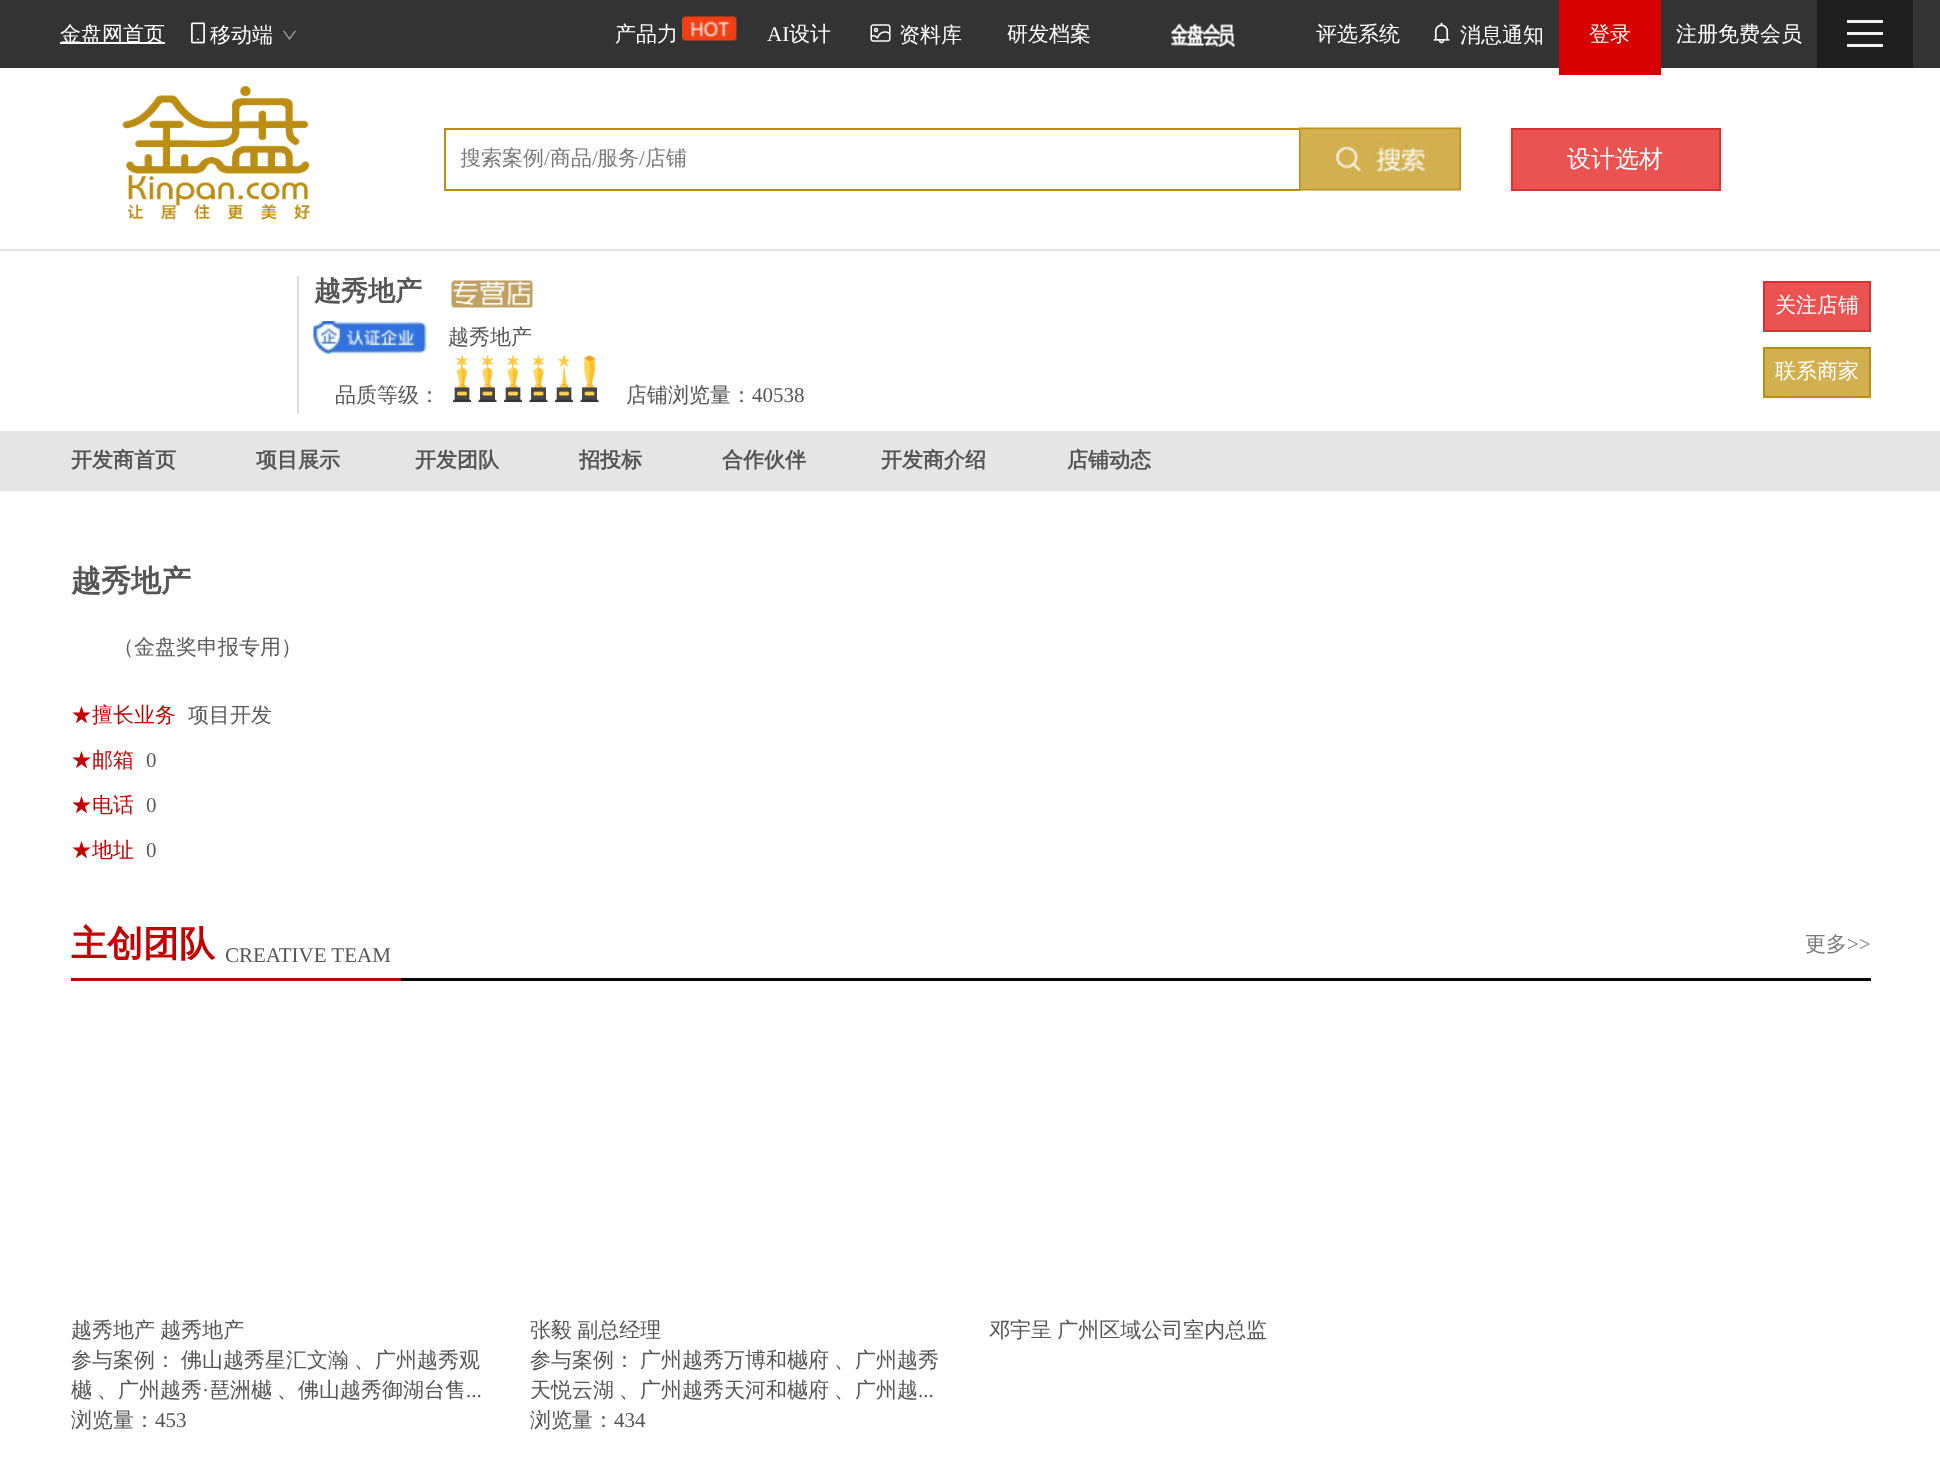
async function draw(canvas) {
  canvas.width = 1940
  canvas.height = 1472
  const ctx = canvas.getContext('2d')
  ctx.miterLimit = 4
  ctx.fontKerning = 'normal'
  async function loadImage(src) {
    const img = new Image()
    img.src = src
    await img.decode()
    return img
  }

  ctx.fillStyle = '#fff'
  ctx.fillRect(0, 0, 1940, 1472)
  ctx.fillStyle = '#333'
  ctx.fillRect(0, 0, 1940, 68)
  ctx.fillStyle = '#fff'
  ctx.fillRect(60, 42, 105, 2)
  ctx.font = '500 21px WenQuanYi Zen Hei'
  ctx.fillText('金盘网首页', 60, 41)
  ctx.drawImage(await loadImage('image0.png'), 191, 22, 14, 22)
  ctx.fillText('移动端', 210, 42)
  ctx.drawImage(await loadImage('image1.png'), 283, 30, 13, 10)
  ctx.fillText('产品力', 615, 41)
  ctx.drawImage(await loadImage('image2.png'), 682, 16, 55, 25)
  ctx.font = '21px Liberation Serif'
  ctx.fillText('AI', 767, 41)
  ctx.font = '500 21px WenQuanYi Zen Hei'
  ctx.fillText('设计', 789, 41)
  ctx.drawImage(await loadImage('image3.png'), 870, 24, 21, 18)
  ctx.fillText('资料库', 899, 42)
  ctx.fillText('研发档案', 1007, 41)
  ctx.drawImage(await loadImage('image4.png'), 1171, 23, 64, 24)
  ctx.fillText('评选系统', 1316, 41)
  ctx.drawImage(await loadImage('image5.png'), 1433, 22, 17, 22)
  ctx.fillText('消息通知', 1460, 42)
  ctx.fillStyle = '#d60000'
  ctx.fillRect(1559, 0, 102, 75)
  ctx.fillStyle = '#fff'
  ctx.fillText('登录', 1589, 41)
  ctx.fillText('注册免费会员', 1676, 41)
  ctx.fillStyle = '#1e1e1e'
  ctx.fillRect(1817, 0, 96, 68)
  ctx.fillStyle = '#efefef'
  ctx.fillRect(1847, 20, 36, 3)
  ctx.fillRect(1847, 32, 36, 3)
  ctx.fillRect(1847, 44, 36, 3)
  ctx.drawImage(await loadImage('image6.png'), 122, 86, 188, 134)
  ctx.strokeStyle = '#bb8e13'
  ctx.lineWidth = 2
  ctx.strokeRect(445, 129, 855, 61)
  ctx.save()
  ctx.beginPath()
  ctx.rect(461, 146, 823, 27)
  ctx.clip()
  ctx.fillStyle = '#797979'
  ctx.fillText('搜索案例', 460, 165)
  ctx.restore()
  ctx.font = '21px Liberation Serif'
  ctx.fillStyle = '#797979'
  ctx.fillText('/', 544, 165)
  ctx.font = '500 21px WenQuanYi Zen Hei'
  ctx.fillText('商品', 550, 165)
  ctx.font = '21px Liberation Serif'
  ctx.fillText('/', 592, 165)
  ctx.font = '500 21px WenQuanYi Zen Hei'
  ctx.fillText('服务', 597, 165)
  ctx.font = '21px Liberation Serif'
  ctx.fillText('/', 639, 165)
  ctx.font = '500 21px WenQuanYi Zen Hei'
  ctx.fillText('店铺', 645, 165)
  ctx.drawImage(await loadImage('image7.png'), 1299, 127, 162, 64)
  ctx.fillStyle = '#eb5353'
  ctx.beginPath()
  ctx.rect(1512, 129, 208, 61)
  ctx.fill()
  ctx.strokeStyle = '#d63434'
  ctx.stroke()
  ctx.font = '500 24px WenQuanYi Zen Hei'
  ctx.fillStyle = '#fff'
  ctx.fillText('设计选材', 1567, 167)
  ctx.fillStyle = '#e5e5e5'
  ctx.fillRect(0, 249, 1940, 2)
  ctx.fillStyle = '#ddd'
  ctx.fillRect(297, 276, 2, 138)
  ctx.font = 'bold 27px WenQuanYi Zen Hei'
  ctx.fillStyle = '#555'
  ctx.fillText('越秀地产', 314, 300)
  ctx.drawImage(await loadImage('image8.png'), 451, 280, 82, 28)
  ctx.drawImage(await loadImage('image9.png'), 313, 321, 115, 33)
  ctx.font = '500 21px WenQuanYi Zen Hei'
  ctx.fillText('越秀地产', 448, 344)
  ctx.fillText('品质等级：', 335, 402)
  ctx.drawImage(await loadImage('image10.png'), 453, 354, 18, 48)
  ctx.drawImage(await loadImage('image11.png'), 478, 354, 19, 48)
  ctx.drawImage(await loadImage('image12.png'), 504, 354, 18, 48)
  ctx.drawImage(await loadImage('image13.png'), 529, 354, 19, 48)
  ctx.drawImage(await loadImage('image14.png'), 555, 354, 18, 48)
  ctx.drawImage(await loadImage('image15.png'), 580, 355, 19, 47)
  ctx.fillText('店铺浏览量：', 626, 402)
  ctx.font = '21px Liberation Serif'
  ctx.fillText('40538', 752, 402)
  ctx.fillStyle = '#eb5353'
  ctx.beginPath()
  ctx.rect(1764, 282, 106, 49)
  ctx.fill()
  ctx.stroke()
  ctx.font = '500 21px WenQuanYi Zen Hei'
  ctx.fillStyle = '#fff'
  ctx.fillText('关注店铺', 1775, 312)
  ctx.fillStyle = '#d2b04f'
  ctx.beginPath()
  ctx.rect(1764, 348, 106, 49)
  ctx.fill()
  ctx.strokeStyle = '#b78f16'
  ctx.stroke()
  ctx.fillStyle = '#fff'
  ctx.fillText('联系商家', 1775, 378)
  ctx.fillStyle = '#e5e5e5'
  ctx.fillRect(0, 431, 1940, 60)
  ctx.font = 'bold 21px WenQuanYi Zen Hei'
  ctx.fillStyle = '#555'
  ctx.fillText('开发商首页', 71, 467)
  ctx.fillText('项目展示', 256, 467)
  ctx.fillText('开发团队', 415, 467)
  ctx.fillText('招投标', 579, 467)
  ctx.fillText('合作伙伴', 722, 467)
  ctx.fillText('开发商介绍', 881, 467)
  ctx.fillText('店铺动态', 1067, 467)
  ctx.font = 'bold 30px WenQuanYi Zen Hei'
  ctx.fillText('越秀地产', 71, 591)
  ctx.font = '500 21px WenQuanYi Zen Hei'
  ctx.fillStyle = '#5c5b5b'
  ctx.fillText('（金盘奖申报专用）', 113, 654)
  ctx.fillStyle = '#c20001'
  ctx.fillText('★擅长业务', 71, 722)
  ctx.fillStyle = '#5c5b5b'
  ctx.fillText('项目开发', 188, 722)
  ctx.fillStyle = '#c20001'
  ctx.fillText('★邮箱', 71, 767)
  ctx.font = '21px Liberation Serif'
  ctx.fillStyle = '#5c5b5b'
  ctx.fillText('0', 146, 767)
  ctx.font = '500 21px WenQuanYi Zen Hei'
  ctx.fillStyle = '#c20001'
  ctx.fillText('★电话', 71, 812)
  ctx.font = '21px Liberation Serif'
  ctx.fillStyle = '#5c5b5b'
  ctx.fillText('0', 146, 812)
  ctx.font = '500 21px WenQuanYi Zen Hei'
  ctx.fillStyle = '#c20001'
  ctx.fillText('★地址', 71, 857)
  ctx.font = '21px Liberation Serif'
  ctx.fillStyle = '#5c5b5b'
  ctx.fillText('0', 146, 857)
  ctx.fillStyle = '#000'
  ctx.fillRect(401, 978, 1470, 3)
  ctx.fillStyle = '#c20001'
  ctx.fillRect(71, 978, 330, 3)
  ctx.font = 'bold 36px WenQuanYi Zen Hei'
  ctx.fillText('主创团队', 71, 956)
  ctx.font = '21px Liberation Serif'
  ctx.fillStyle = '#555'
  ctx.fillText('CREATIVE TEAM', 225, 962)
  ctx.font = '500 21px WenQuanYi Zen Hei'
  ctx.fillStyle = '#797979'
  ctx.fillText('更多', 1805, 951)
  ctx.font = '21px Liberation Serif'
  ctx.fillText('>>', 1847, 951)
  ctx.wordSpacing = '-1px'
  ctx.font = '500 21px WenQuanYi Zen Hei'
  ctx.fillStyle = '#555'
  ctx.fillText('越秀地产 越秀地产', 71, 1337)
  ctx.wordSpacing = '0px'
  ctx.fillText('参与案例：', 71, 1367)
  ctx.fillText('佛山越秀星汇文瀚', 181, 1367)
  ctx.fillText('、广州越秀观', 354, 1367)
  ctx.fillText('樾', 71, 1397)
  ctx.fillText('、广州越秀', 97, 1397)
  ctx.font = '21px Liberation Serif'
  ctx.fillText('·', 202, 1397)
  ctx.font = '500 21px WenQuanYi Zen Hei'
  ctx.fillText('琶洲樾', 209, 1397)
  ctx.fillText('、佛山越秀御湖台售', 277, 1397)
  ctx.font = '21px Liberation Serif'
  ctx.fillText('...', 466, 1397)
  ctx.font = '500 21px WenQuanYi Zen Hei'
  ctx.fillText('浏览量：', 71, 1427)
  ctx.font = '21px Liberation Serif'
  ctx.fillText('453', 155, 1427)
  ctx.wordSpacing = '-1px'
  ctx.font = '500 21px WenQuanYi Zen Hei'
  ctx.fillText('张毅 副总经理', 530, 1337)
  ctx.wordSpacing = '0px'
  ctx.fillText('参与案例：', 530, 1367)
  ctx.fillText('广州越秀万博和樾府', 640, 1367)
  ctx.fillText('、广州越秀', 834, 1367)
  ctx.fillText('天悦云湖', 530, 1397)
  ctx.fillText('、广州越秀天河和樾府', 619, 1397)
  ctx.fillText('、广州越', 834, 1397)
  ctx.font = '21px Liberation Serif'
  ctx.fillText('...', 918, 1397)
  ctx.font = '500 21px WenQuanYi Zen Hei'
  ctx.fillText('浏览量：', 530, 1427)
  ctx.font = '21px Liberation Serif'
  ctx.fillText('434', 614, 1427)
  ctx.wordSpacing = '-1px'
  ctx.font = '500 21px WenQuanYi Zen Hei'
  ctx.fillText('邓宇呈 广州区域公司室内总监', 989, 1337)
}

draw(document.querySelector('canvas'))
